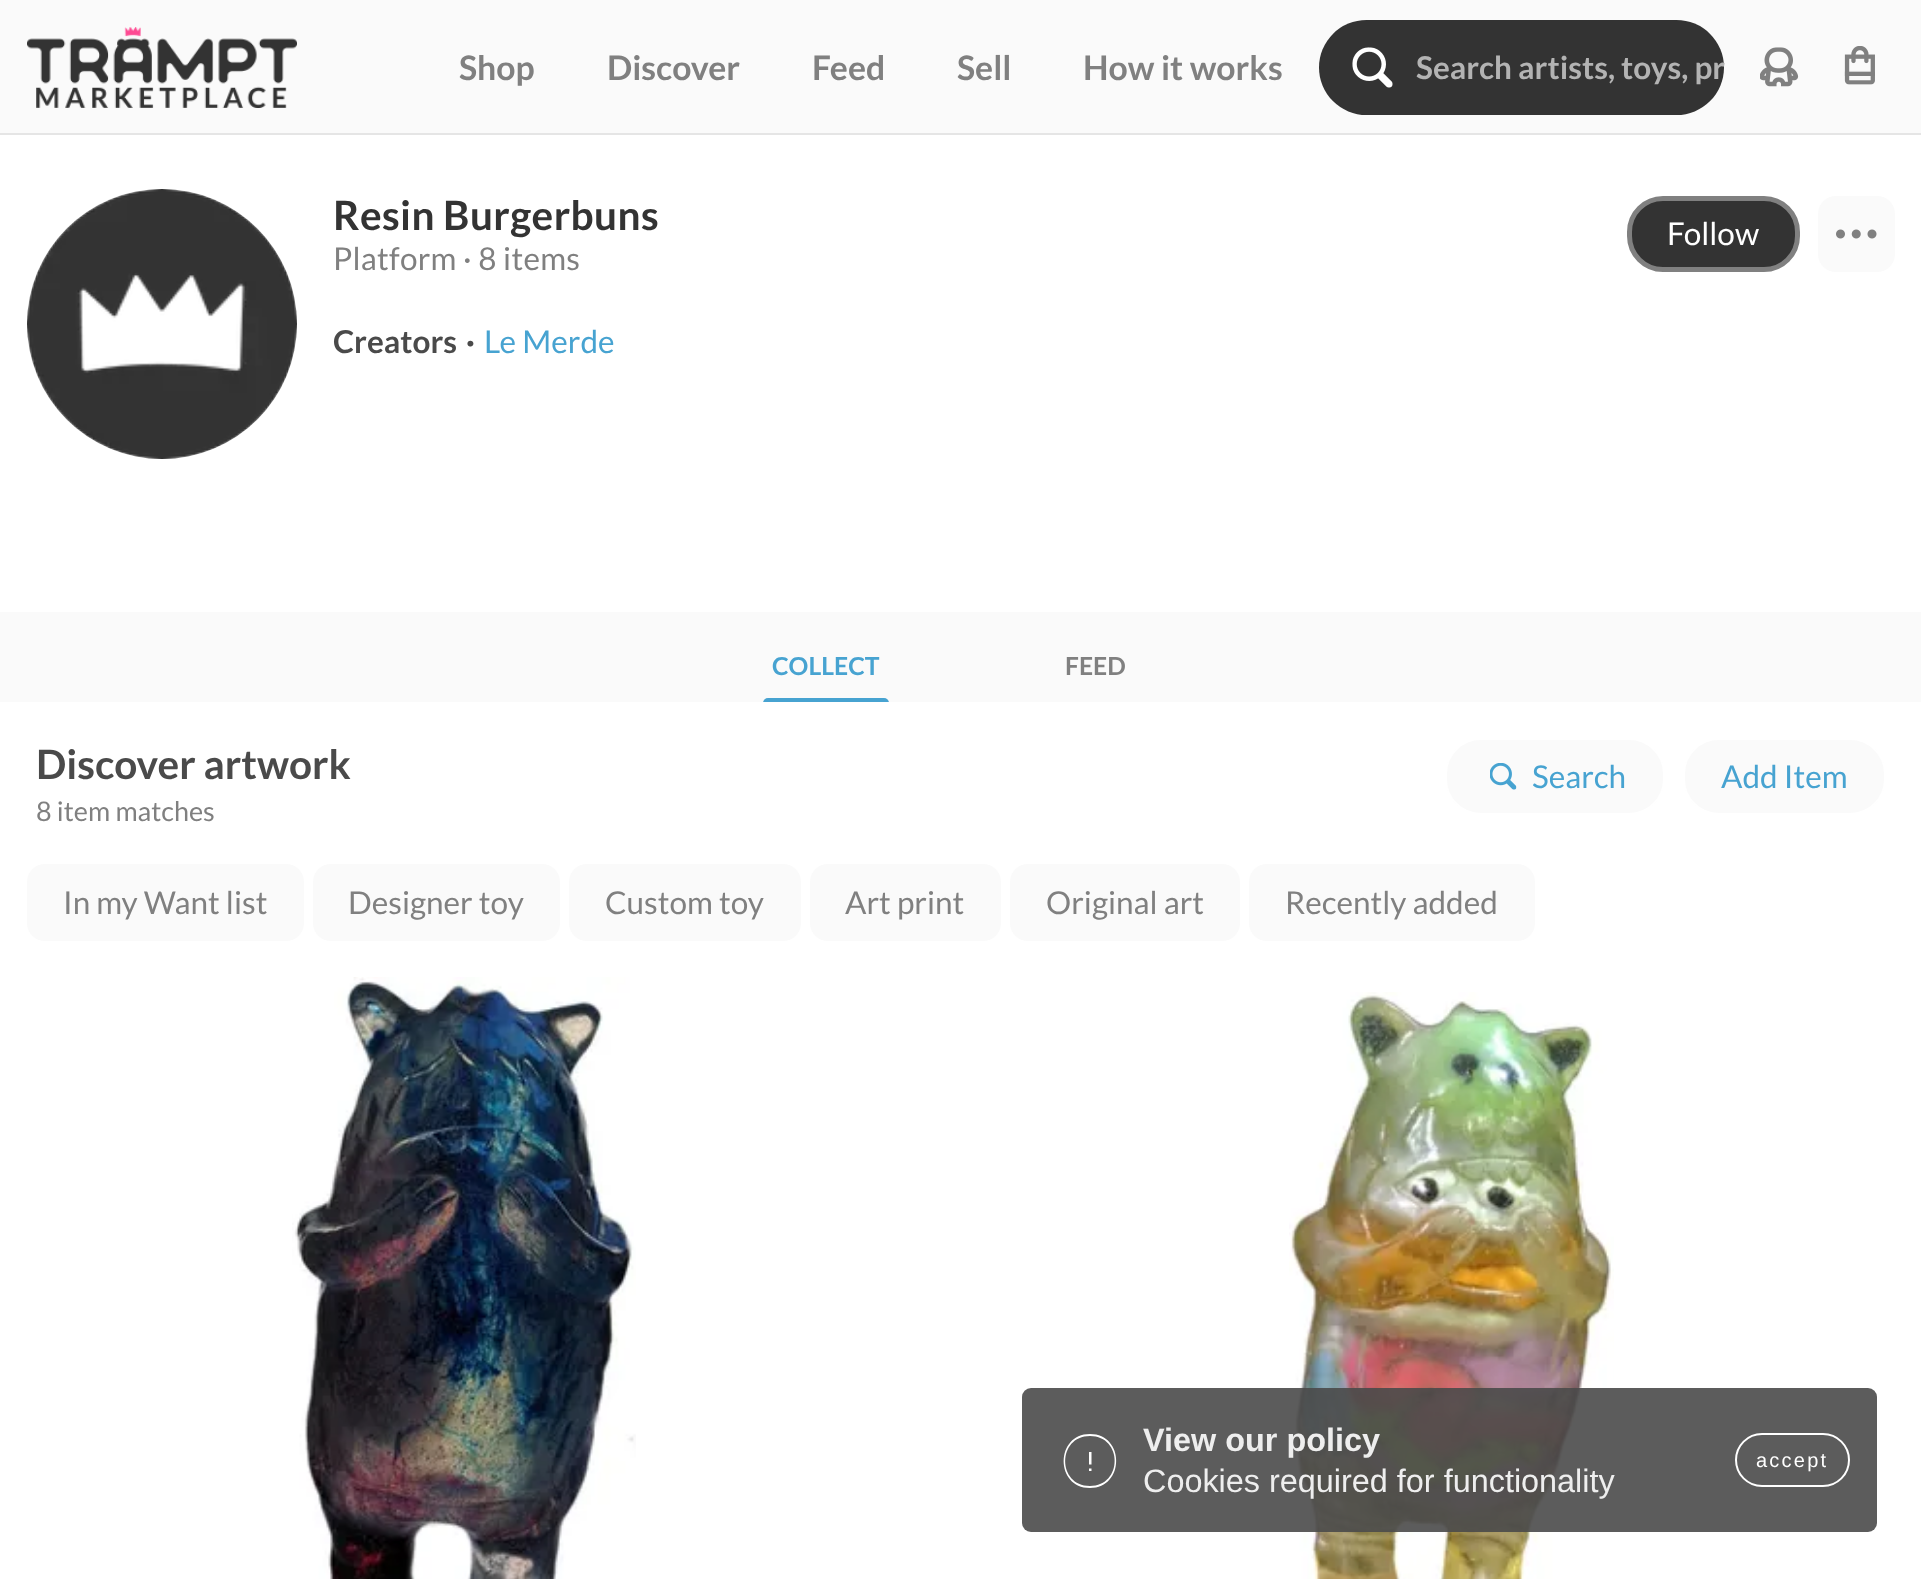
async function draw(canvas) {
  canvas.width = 1921
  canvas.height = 1579
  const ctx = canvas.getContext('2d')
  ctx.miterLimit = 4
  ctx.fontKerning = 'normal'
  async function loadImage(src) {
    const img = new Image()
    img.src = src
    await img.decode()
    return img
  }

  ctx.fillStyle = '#fff'
  ctx.fillRect(0, 0, 1921, 1579)
  ctx.fillStyle = '#fafafa'
  ctx.fillRect(0, 0, 1921, 133)
  ctx.fillStyle = '#e5e5e5'
  ctx.fillRect(0, 133, 1921, 2)
  ctx.drawImage(await loadImage('image0.png'), 27, 27, 270, 81)
  ctx.font = 'bold 33.75px Lato'
  ctx.fillStyle = '#808080'
  ctx.fillText('Shop', 459, 80)
  ctx.fillText('Discover', 607, 80)
  ctx.fillText('Feed', 812, 80)
  ctx.fillText('Sell', 957, 80)
  ctx.fillText('How it works', 1083, 80)
  ctx.fillStyle = '#333'
  ctx.beginPath()
  ctx.roundRect(1319, 20, 405, 95, 47.5)
  ctx.fill()
  ctx.drawImage(await loadImage('image1.png'), 1352, 47, 41, 41)
  ctx.font = 'bold 31.5px Lato'
  ctx.fillStyle = '#b3b3b3'
  ctx.fillText('Search artists, toys, pr', 1416, 79)
  ctx.drawImage(await loadImage('image2.png'), 1760, 47, 39, 40)
  ctx.drawImage(await loadImage('image3.png'), 1844, 46, 31, 39)
  ctx.drawImage(await loadImage('image4.png'), 27, 189, 270, 270)
  ctx.letterSpacing = '0.4px'
  ctx.font = 'bold 40.5px Lato'
  ctx.fillStyle = '#333'
  ctx.fillText('Resin Burgerbuns', 333, 230)
  ctx.letterSpacing = '0.25px'
  ctx.font = '31.5px Lato'
  ctx.fillStyle = '#808080'
  ctx.fillText('Platform · 8 items', 333, 270)
  ctx.fillStyle = '#333'
  ctx.beginPath()
  ctx.roundRect(1629.5, 198.5, 168, 71, 33.5)
  ctx.fill()
  ctx.strokeStyle = '#808080'
  ctx.lineWidth = 5
  ctx.stroke()
  ctx.letterSpacing = '0px'
  ctx.fillStyle = '#fff'
  ctx.fillText('Follow', 1667, 245)
  ctx.fillStyle = '#fafafa'
  ctx.beginPath()
  ctx.roundRect(1818, 196, 77, 76, 18)
  ctx.fill()
  ctx.drawImage(await loadImage('image5.png'), 1836, 229, 41, 10)
  ctx.font = 'bold 31.5px Lato'
  ctx.fillStyle = '#4a4a4a'
  ctx.fillText('Creators', 333, 353)
  ctx.fillText('·', 466, 353)
  ctx.font = '31.5px Lato'
  ctx.fillStyle = '#47a3d1'
  ctx.fillText('Le Merde', 484, 353)
  ctx.fillStyle = '#fafafa'
  ctx.fillRect(0, 612, 1921, 90)
  ctx.font = 'bold 24.75px Lato'
  ctx.fillStyle = '#47a3d1'
  ctx.fillText('COLLECT', 772, 675)
  ctx.beginPath()
  ctx.roundRect(763, 698, 126, 5, [5, 5, 0, 0])
  ctx.fill()
  ctx.fillStyle = '#808080'
  ctx.fillText('FEED', 1065, 675)
  ctx.fillStyle = '#fff'
  ctx.fillRect(763, 702, 126, 1)
  ctx.font = 'bold 40.5px Lato'
  ctx.fillStyle = '#4a4a4a'
  ctx.fillText('Discover artwork', 36, 779)
  ctx.font = '27px Lato'
  ctx.fillStyle = '#808080'
  ctx.fillText('8 item matches', 36, 821)
  ctx.fillStyle = '#fafafa'
  ctx.beginPath()
  ctx.roundRect(1446, 739, 218, 75, 35)
  ctx.fill()
  ctx.strokeStyle = '#fff'
  ctx.lineWidth = 2
  ctx.stroke()
  ctx.drawImage(await loadImage('image6.png'), 1490, 763, 27, 27)
  ctx.font = '31.5px Lato'
  ctx.fillStyle = '#47a3d1'
  ctx.fillText('Search', 1532, 788)
  ctx.fillStyle = '#fafafa'
  ctx.beginPath()
  ctx.roundRect(1684, 739, 201, 75, 35)
  ctx.fill()
  ctx.stroke()
  ctx.fillStyle = '#47a3d1'
  ctx.fillText('Add Item', 1721, 788)
  ctx.fillStyle = '#fafafa'
  ctx.beginPath()
  ctx.roundRect(27, 864, 277, 77, 18)
  ctx.fill()
  ctx.fillStyle = '#808080'
  ctx.fillText('In my Want list', 63, 914)
  ctx.fillStyle = '#fafafa'
  ctx.beginPath()
  ctx.roundRect(313, 864, 247, 77, 18)
  ctx.fill()
  ctx.fillStyle = '#808080'
  ctx.fillText('Designer toy', 348, 914)
  ctx.fillStyle = '#fafafa'
  ctx.beginPath()
  ctx.roundRect(569, 864, 232, 77, 18)
  ctx.fill()
  ctx.fillStyle = '#808080'
  ctx.fillText('Custom toy', 605, 914)
  ctx.fillStyle = '#fafafa'
  ctx.beginPath()
  ctx.roundRect(810, 864, 191, 77, 18)
  ctx.fill()
  ctx.fillStyle = '#808080'
  ctx.fillText('Art print', 845, 914)
  ctx.fillStyle = '#fafafa'
  ctx.beginPath()
  ctx.roundRect(1010, 864, 230, 77, 18)
  ctx.fill()
  ctx.fillStyle = '#808080'
  ctx.fillText('Original art', 1046, 914)
  ctx.fillStyle = '#fafafa'
  ctx.beginPath()
  ctx.roundRect(1249, 864, 286, 77, 18)
  ctx.fill()
  ctx.fillStyle = '#808080'
  ctx.fillText('Recently added', 1285, 914)
  ctx.drawImage(await loadImage('image7.png'), 292, 977, 344, 602)
  ctx.drawImage(await loadImage('image8.png'), 1289, 992, 325, 587)
  ctx.fillStyle = '#4a4a4ae6'
  ctx.beginPath()
  ctx.roundRect(1022, 1388, 855, 144, 9)
  ctx.fill()
  ctx.fillStyle = '#fff'
  ctx.beginPath()
  ctx.moveTo(1090, 1488)
  ctx.bezierCurveTo(1055, 1488, 1055, 1434, 1090, 1434)
  ctx.bezierCurveTo(1125, 1434, 1125, 1488, 1090, 1488)
  ctx.closePath()
  ctx.moveTo(1090, 1436)
  ctx.bezierCurveTo(1057, 1436, 1057, 1486, 1090, 1486)
  ctx.bezierCurveTo(1123, 1486, 1123, 1436, 1090, 1436)
  ctx.closePath()
  ctx.fill()
  ctx.beginPath()
  ctx.moveTo(1089, 1468.5)
  ctx.lineTo(1091.5, 1468.5)
  ctx.lineTo(1091.5, 1471)
  ctx.lineTo(1089, 1471)
  ctx.closePath()
  ctx.moveTo(1089, 1452)
  ctx.lineTo(1091.5, 1452)
  ctx.lineTo(1091.5, 1464.5)
  ctx.lineTo(1089, 1464.5)
  ctx.closePath()
  ctx.fill()
  ctx.font = 'bold 32.4px Liberation Sans'
  ctx.fillStyle = '#eee'
  ctx.fillText('View our policy', 1143, 1451)
  ctx.font = '32.4px Liberation Sans'
  ctx.fillText('Cookies required for functionality', 1143, 1492)
  ctx.beginPath()
  ctx.roundRect(1736, 1434, 113, 52, 26)
  ctx.stroke()
  ctx.letterSpacing = '2.25px'
  ctx.font = '20px Liberation Sans'
  ctx.fillStyle = '#fff'
  ctx.fillText('accept', 1756, 1467)
}

draw(document.querySelector('canvas'))
